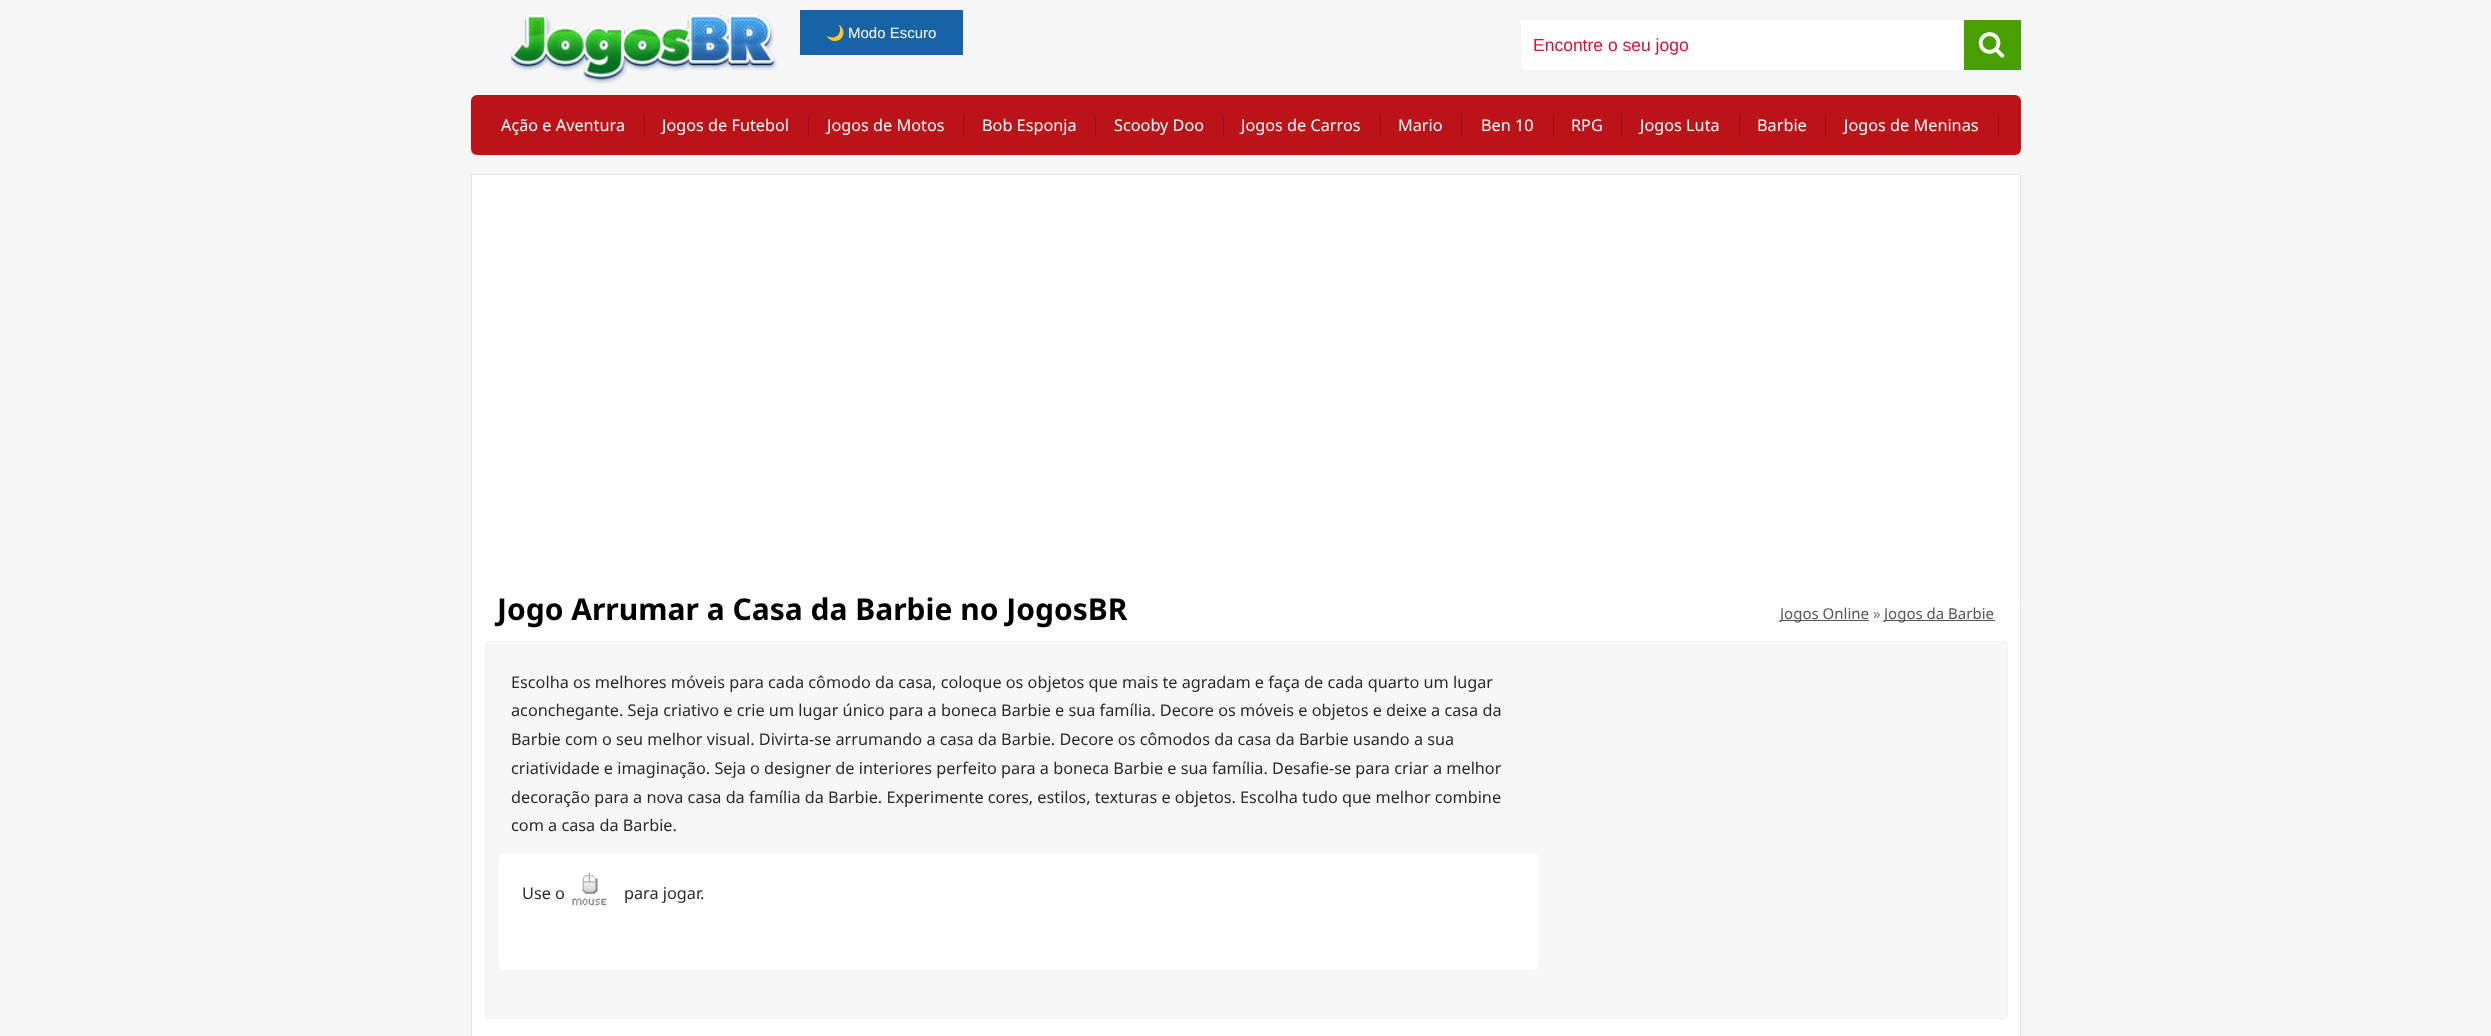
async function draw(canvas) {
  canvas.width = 2491
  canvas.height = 1036
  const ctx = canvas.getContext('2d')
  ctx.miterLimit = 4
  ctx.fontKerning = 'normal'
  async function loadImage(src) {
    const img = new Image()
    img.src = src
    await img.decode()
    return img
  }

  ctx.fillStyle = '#f6f6f6'
  ctx.fillRect(0, 0, 2491, 1036)
  ctx.drawImage(await loadImage('image0.png'), 510, 15, 267, 69)
  ctx.fillStyle = '#1862a6'
  ctx.fillRect(800, 10, 163, 45)
  ctx.font = '15px Noto Color Emoji'
  ctx.fillStyle = '#fff'
  ctx.fillText('🌙', 826, 38)
  ctx.font = '15px Liberation Sans'
  ctx.fillText('Modo Escuro', 848, 38)
  ctx.beginPath()
  ctx.roundRect(1521, 20, 500, 50, 5)
  ctx.fill()
  ctx.fillRect(1521, 20, 3, 3)
  ctx.font = '17.5px Liberation Sans'
  ctx.fillStyle = '#d01533'
  ctx.fillText('Encontre o seu jogo', 1533, 51)
  ctx.fillStyle = '#48a000'
  ctx.fillRect(1964, 20, 57, 50)
  ctx.drawImage(await loadImage('image1.png'), 1978, 32, 27, 26)
  ctx.fillStyle = '#bb1317'
  ctx.beginPath()
  ctx.roundRect(471, 95, 1550, 60, 6)
  ctx.fill()
  ctx.fillStyle = '#9c0f18'
  ctx.fillRect(644, 114, 1, 22)
  ctx.font = '16.25px Noto Sans'
  ctx.fillStyle = '#fff'
  ctx.fillText('Ação e Aventura', 501, 131)
  ctx.fillStyle = '#9c0f18'
  ctx.fillRect(808, 114, 1, 22)
  ctx.fillStyle = '#fff'
  ctx.fillText('Jogos de Futebol', 662, 131)
  ctx.fillStyle = '#9c0f18'
  ctx.fillRect(963, 114, 1, 22)
  ctx.fillStyle = '#fff'
  ctx.fillText('Jogos de Motos', 827, 131)
  ctx.fillStyle = '#9c0f18'
  ctx.fillRect(1095, 114, 1, 22)
  ctx.fillStyle = '#fff'
  ctx.fillText('Bob Esponja', 982, 131)
  ctx.fillStyle = '#9c0f18'
  ctx.fillRect(1223, 114, 1, 22)
  ctx.fillStyle = '#fff'
  ctx.fillText('Scooby Doo', 1114, 131)
  ctx.fillStyle = '#9c0f18'
  ctx.fillRect(1380, 114, 1, 22)
  ctx.fillStyle = '#fff'
  ctx.fillText('Jogos de Carros', 1241, 131)
  ctx.fillStyle = '#9c0f18'
  ctx.fillRect(1461, 114, 1, 22)
  ctx.fillStyle = '#fff'
  ctx.fillText('Mario', 1398, 131)
  ctx.fillStyle = '#9c0f18'
  ctx.fillRect(1553, 114, 1, 22)
  ctx.fillStyle = '#fff'
  ctx.fillText('Ben 10', 1481, 131)
  ctx.fillStyle = '#9c0f18'
  ctx.fillRect(1621, 114, 1, 22)
  ctx.fillStyle = '#fff'
  ctx.fillText('RPG', 1571, 131)
  ctx.fillStyle = '#9c0f18'
  ctx.fillRect(1739, 114, 1, 22)
  ctx.fillStyle = '#fff'
  ctx.fillText('Jogos Luta', 1640, 131)
  ctx.fillStyle = '#9c0f18'
  ctx.fillRect(1825, 114, 1, 22)
  ctx.fillStyle = '#fff'
  ctx.fillText('Barbie', 1757, 131)
  ctx.fillStyle = '#9c0f18'
  ctx.fillRect(1998, 114, 1, 22)
  ctx.fillStyle = '#fff'
  ctx.fillText('Jogos de Meninas', 1844, 131)
  ctx.beginPath()
  ctx.rect(471.5, 174.5, 1549, 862)
  ctx.fill()
  ctx.strokeStyle = '#e5e5e5'
  ctx.stroke()
  ctx.font = 'bold 30px Noto Sans'
  ctx.fillStyle = '#000'
  ctx.fillText('Jogo Arrumar a Casa da Barbie no JogosBR', 497, 620)
  ctx.fillStyle = '#565656'
  ctx.fillRect(1780, 620, 89, 1)
  ctx.font = '15px Noto Sans'
  ctx.fillText('Jogos Online', 1780, 619)
  ctx.fillStyle = '#7c7c7c'
  ctx.fillText('»', 1873, 619)
  ctx.fillStyle = '#565656'
  ctx.fillRect(1884, 620, 111, 1)
  ctx.fillText('Jogos da Barbie', 1884, 619)
  ctx.fillStyle = '#f8f7f7'
  ctx.beginPath()
  ctx.roundRect(485.5, 641.5, 1522, 377, 3.5)
  ctx.fill()
  ctx.strokeStyle = '#f2f2f2'
  ctx.stroke()
  ctx.font = '16.25px Noto Sans'
  ctx.fillStyle = '#2a2a2a'
  ctx.fillText('Escolha os melhores móveis para cada cômodo da casa, coloque os objetos que mais te agradam e faça de cada quarto um lugar', 511, 688)
  ctx.fillText('aconchegante. Seja criativo e crie um lugar único para a boneca Barbie e sua família. Decore os móveis e objetos e deixe a casa da', 511, 716)
  ctx.fillText('Barbie com o seu melhor visual. Divirta-se arrumando a casa da Barbie. Decore os cômodos da casa da Barbie usando a sua', 511, 745)
  ctx.fillText('criatividade e imaginação. Seja o designer de interiores perfeito para a boneca Barbie e sua família. Desafie-se para criar a melhor', 511, 774)
  ctx.fillText('decoração para a nova casa da família da Barbie. Experimente cores, estilos, texturas e objetos. Escolha tudo que melhor combine', 511, 803)
  ctx.fillText('com a casa da Barbie.', 511, 831)
  ctx.fillStyle = '#fff'
  ctx.beginPath()
  ctx.roundRect(499, 853, 1040, 117, 6)
  ctx.fill()
  ctx.fillStyle = '#2a2a2a'
  ctx.fillText('Use o', 522, 899)
  ctx.drawImage(await loadImage('image2.png'), 572, 872, 35, 34)
  ctx.fillText('para jogar.', 624, 899)
}

draw(document.querySelector('canvas'))
